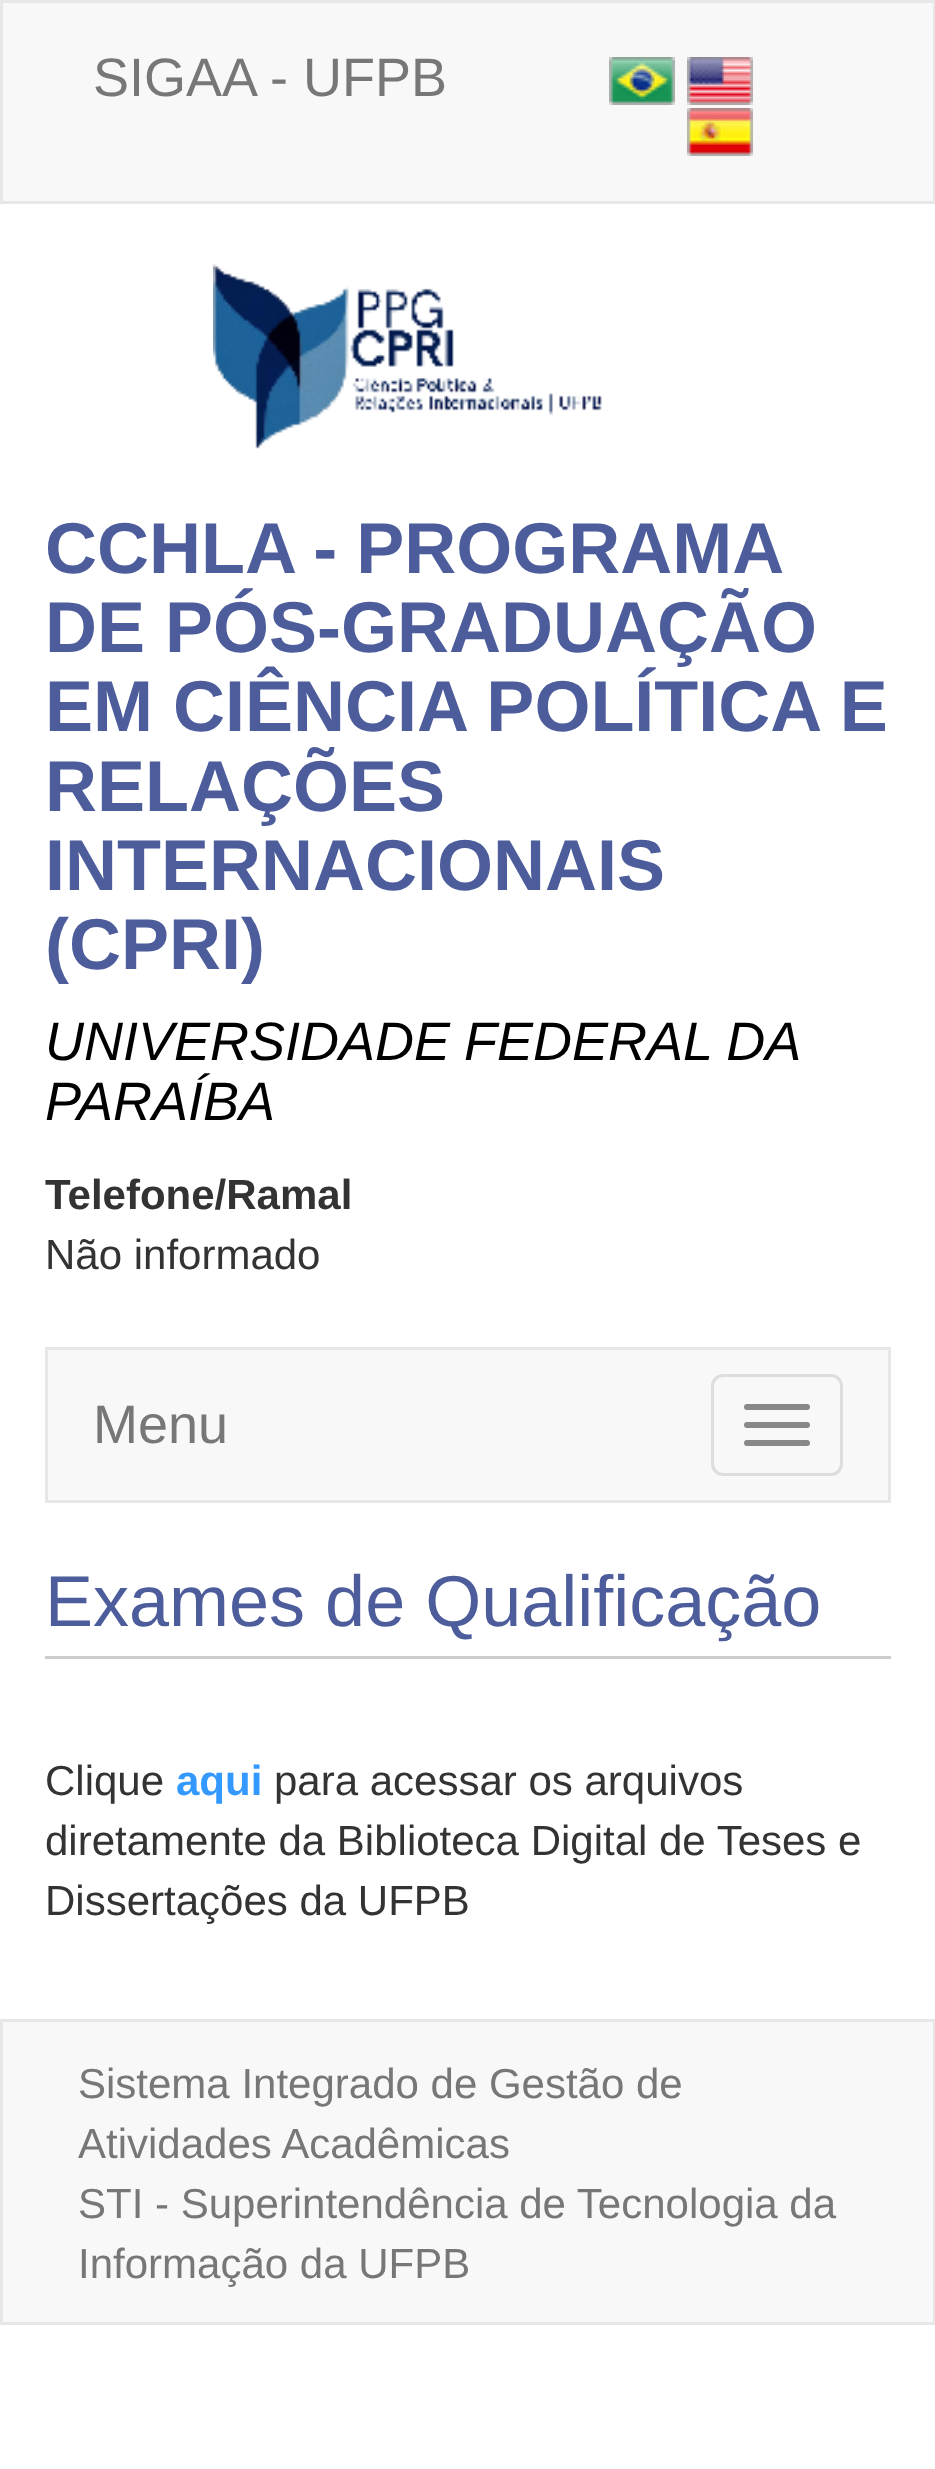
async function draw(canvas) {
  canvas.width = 935
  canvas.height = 2469
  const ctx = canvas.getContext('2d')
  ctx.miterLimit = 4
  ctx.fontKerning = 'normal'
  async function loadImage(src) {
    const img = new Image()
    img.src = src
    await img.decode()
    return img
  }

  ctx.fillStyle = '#fff'
  ctx.fillRect(0, 0, 935, 2469)
  ctx.fillStyle = '#f8f8f8'
  ctx.beginPath()
  ctx.rect(1.5, 1.5, 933, 201)
  ctx.fill()
  ctx.strokeStyle = '#e7e7e7'
  ctx.lineWidth = 3
  ctx.stroke()
  ctx.font = '54px Liberation Sans'
  ctx.fillStyle = '#777'
  ctx.fillText('SIGAA - UFPB', 93, 96)
  ctx.drawImage(await loadImage('image0.png'), 609, 57, 66, 48)
  ctx.drawImage(await loadImage('image1.png'), 687, 57, 66, 48)
  ctx.drawImage(await loadImage('image2.png'), 687, 108, 66, 48)
  ctx.drawImage(await loadImage('image3.png'), 213, 264, 389, 185)
  ctx.wordSpacing = '-1px'
  ctx.font = 'bold 72px Liberation Sans'
  ctx.fillStyle = '#4d5d9c'
  ctx.fillText('CCHLA - PROGRAMA', 45, 573)
  ctx.wordSpacing = '0px'
  ctx.fillText('DE PÓS-GRADUAÇÃO', 45, 652)
  ctx.fillText('EM CIÊNCIA POLÍTICA E', 45, 731)
  ctx.fillText('RELAÇÕES', 45, 811)
  ctx.fillText('INTERNACIONAIS', 45, 890)
  ctx.fillText('(CPRI)', 45, 969)
  ctx.wordSpacing = '-1px'
  ctx.font = 'italic 54px Liberation Sans'
  ctx.fillStyle = '#000'
  ctx.fillText('UNIVERSIDADE FEDERAL DA', 45, 1060)
  ctx.wordSpacing = '0px'
  ctx.fillText('PARAÍBA', 45, 1120)
  ctx.font = 'bold 42px Liberation Sans'
  ctx.fillStyle = '#333'
  ctx.fillText('Telefone/Ramal', 45, 1209)
  ctx.font = '42px Liberation Sans'
  ctx.fillText('Não informado', 45, 1269)
  ctx.fillStyle = '#f8f8f8'
  ctx.beginPath()
  ctx.rect(46.5, 1348.5, 843, 153)
  ctx.fill()
  ctx.stroke()
  ctx.font = '54px Liberation Sans'
  ctx.fillStyle = '#777'
  ctx.fillText('Menu', 93, 1443)
  ctx.beginPath()
  ctx.roundRect(712.5, 1375.5, 129, 99, 10.5)
  ctx.strokeStyle = '#ddd'
  ctx.stroke()
  ctx.fillStyle = '#888'
  ctx.beginPath()
  ctx.roundRect(744, 1404, 66, 6, 3)
  ctx.fill()
  ctx.beginPath()
  ctx.roundRect(744, 1422, 66, 6, 3)
  ctx.fill()
  ctx.beginPath()
  ctx.roundRect(744, 1440, 66, 6, 3)
  ctx.fill()
  ctx.fillStyle = '#ccc'
  ctx.fillRect(45, 1656, 846, 3)
  ctx.font = '72px Liberation Sans'
  ctx.fillStyle = '#4d5d9c'
  ctx.fillText('Exames de Qualificação', 45, 1626)
  ctx.font = '42px Liberation Sans'
  ctx.fillStyle = '#333'
  ctx.fillText('Clique', 45, 1795)
  ctx.font = 'bold 42px Liberation Sans'
  ctx.fillStyle = '#39f'
  ctx.fillText('aqui', 176, 1795)
  ctx.font = '42px Liberation Sans'
  ctx.fillStyle = '#333'
  ctx.fillText('para acessar os arquivos', 274, 1795)
  ctx.fillText('diretamente da Biblioteca Digital de Teses e', 45, 1855)
  ctx.fillText('Dissertações da UFPB', 45, 1915)
  ctx.fillStyle = '#f8f8f8'
  ctx.beginPath()
  ctx.rect(1.5, 2020.5, 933, 303)
  ctx.fill()
  ctx.strokeStyle = '#e7e7e7'
  ctx.stroke()
  ctx.fillStyle = '#777'
  ctx.fillText('Sistema Integrado de Gestão de', 78, 2098)
  ctx.fillText('Atividades Acadêmicas', 78, 2158)
  ctx.fillText('STI - Superintendência de Tecnologia da', 78, 2218)
  ctx.fillText('Informação da UFPB', 78, 2278)
}

draw(document.querySelector('canvas'))
